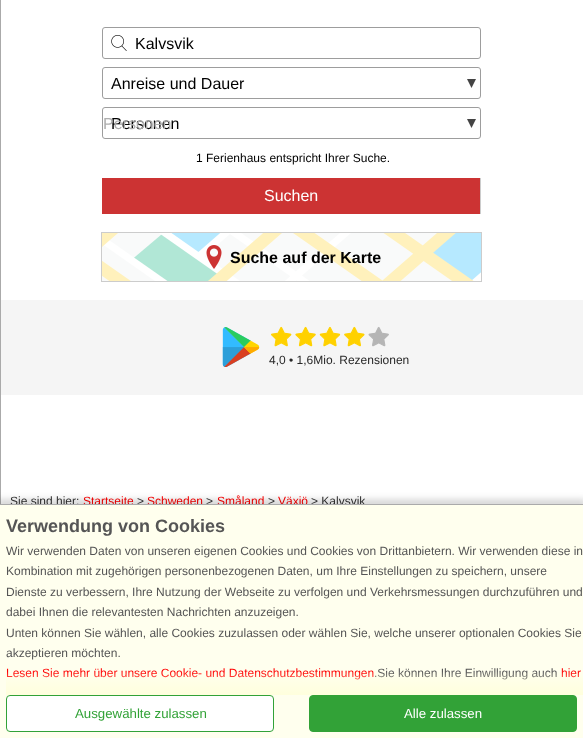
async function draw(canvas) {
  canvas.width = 583
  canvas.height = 738
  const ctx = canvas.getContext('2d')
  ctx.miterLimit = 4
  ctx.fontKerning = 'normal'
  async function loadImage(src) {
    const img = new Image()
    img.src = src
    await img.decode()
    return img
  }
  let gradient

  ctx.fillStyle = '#fff'
  ctx.fillRect(0, 0, 583, 738)
  ctx.fillStyle = '#aaa'
  ctx.fillRect(0, 0, 1, 504)
  ctx.beginPath()
  ctx.roundRect(102.5, 27.5, 378, 31, 2.5)
  ctx.strokeStyle = '#9d9d9d'
  ctx.stroke()
  ctx.drawImage(await loadImage('image0.png'), 111, 35, 16, 16)
  ctx.font = '16px Liberation Sans'
  ctx.fillStyle = '#000'
  ctx.fillText('Kalvsvik', 135, 49)
  ctx.beginPath()
  ctx.roundRect(102.5, 67.5, 378, 31, 2.5)
  ctx.stroke()
  ctx.fillText('Anreise und Dauer', 111, 89)
  ctx.fillStyle = '#444'
  ctx.beginPath()
  ctx.moveTo(467, 79)
  ctx.lineTo(471.5, 88)
  ctx.lineTo(476, 79)
  ctx.closePath()
  ctx.fill()
  ctx.beginPath()
  ctx.roundRect(102.5, 107.5, 378, 31, 2.5)
  ctx.stroke()
  ctx.fillStyle = '#000'
  ctx.fillText('Personen', 111, 129)
  ctx.fillStyle = '#aeaeae'
  ctx.fillText('Personen', 103, 129)
  ctx.fillStyle = '#444'
  ctx.beginPath()
  ctx.moveTo(467, 119)
  ctx.lineTo(471.5, 128)
  ctx.lineTo(476, 119)
  ctx.closePath()
  ctx.fill()
  ctx.font = '12px Liberation Sans'
  ctx.fillStyle = '#000'
  ctx.fillText('1 Ferienhaus entspricht Ihrer Suche.', 196, 162)
  ctx.fillStyle = '#ccc'
  ctx.fillRect(480, 178, 1, 36)
  ctx.fillStyle = '#c33'
  ctx.fillRect(102, 178, 378, 36)
  ctx.font = '16px Liberation Sans'
  ctx.fillStyle = '#fff'
  ctx.fillText('Suchen', 264, 201)
  ctx.strokeStyle = '#ccc'
  ctx.strokeRect(101.5, 232.5, 380, 49)
  ctx.drawImage(await loadImage('image1.png'), 102, 233, 379, 48)
  ctx.drawImage(await loadImage('image2.png'), 206, 245, 16, 24)
  ctx.font = 'bold 16px Liberation Sans'
  ctx.fillStyle = '#000'
  ctx.fillText('Suche auf der Karte', 230, 263)
  ctx.fillStyle = '#f5f5f5'
  ctx.fillRect(1, 300, 582, 95)
  ctx.drawImage(await loadImage('image3.png'), 222, 327, 38, 40)
  ctx.drawImage(await loadImage('image4.png'), 271, 326, 118, 21)
  ctx.font = '12px Liberation Sans'
  ctx.fillStyle = '#282828'
  ctx.fillText('4,0 • 1,6Mio. Rezensionen', 269, 364)
  ctx.fillStyle = '#333'
  ctx.fillText('Sie sind hier:', 10, 505)
  ctx.fillStyle = '#f00'
  ctx.fillText('Startseite', 83, 505)
  ctx.fillStyle = '#333'
  ctx.fillText('>', 137, 505)
  ctx.fillStyle = '#f00'
  ctx.fillText('Schweden', 147, 505)
  ctx.fillStyle = '#333'
  ctx.fillText('>', 206, 505)
  ctx.fillStyle = '#f00'
  ctx.fillText('Småland', 217, 505)
  ctx.fillStyle = '#333'
  ctx.fillText('>', 268, 505)
  ctx.fillStyle = '#f00'
  ctx.fillText('Växjö', 278, 505)
  ctx.fillStyle = '#333'
  ctx.fillText('> Kalvsvik', 311, 505)
  ctx.fillStyle = '#00000026'
  ctx.filter = 'blur(3px)'
  ctx.beginPath()
  ctx.rect(-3, 499, 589, 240)
  ctx.fill()
  ctx.filter = 'none'
  ctx.fillStyle = '#ffe'
  ctx.fillRect(0, 505, 583, 233)
  ctx.fillStyle = '#aaa'
  ctx.fillRect(0, 504, 583, 1)
  ctx.font = 'bold 18px Liberation Sans'
  ctx.fillStyle = '#555'
  ctx.fillText('Verwendung von Cookies', 6, 532)
  ctx.font = '12px Liberation Sans'
  ctx.fillText('Wir verwenden Daten von unseren eigenen Cookies und Cookies von Drittanbietern. Wir verwenden diese in', 6, 555)
  ctx.fillText('Kombination mit zugehörigen personenbezogenen Daten, um Ihre Einstellungen zu speichern, unsere', 6, 575)
  ctx.fillText('Dienste zu verbessern, Ihre Nutzung der Webseite zu verfolgen und Verkehrsmessungen durchzuführen und', 6, 596)
  ctx.fillText('dabei Ihnen die relevantesten Nachrichten anzuzeigen.', 6, 616)
  ctx.fillText('Unten können Sie wählen, alle Cookies zuzulassen oder wählen Sie, welche unserer optionalen Cookies Sie', 6, 637)
  ctx.fillText('akzeptieren möchten.', 6, 657)
  ctx.fillStyle = '#f00'
  ctx.fillText('Lesen Sie mehr über unsere Cookie- und Datenschutzbestimmungen', 6, 677)
  ctx.fillStyle = '#555'
  ctx.fillText('.Sie können Ihre Einwilligung auch', 374, 677)
  ctx.fillStyle = '#f00'
  ctx.fillText('hier', 561, 677)
  gradient = ctx.createLinearGradient(295, 695, 295, 671)
  gradient.addColorStop(0, '#ffd')
  gradient.addColorStop(1, '#ffffdd00')
  ctx.fillStyle = gradient
  ctx.fillRect(6, 672, 577, 23)
  ctx.fillStyle = '#fff'
  ctx.beginPath()
  ctx.roundRect(6.5, 695.5, 267, 36, 3.5)
  ctx.fill()
  ctx.strokeStyle = '#32a237'
  ctx.stroke()
  ctx.font = '13.25px Liberation Sans'
  ctx.fillStyle = '#32a237'
  ctx.fillText('Ausgewählte zulassen', 75, 718)
  ctx.beginPath()
  ctx.roundRect(309.5, 695.5, 267, 36, 3.5)
  ctx.fill()
  ctx.stroke()
  ctx.fillStyle = '#fff'
  ctx.fillText('Alle zulassen', 404, 718)
}

draw(document.querySelector('canvas'))
